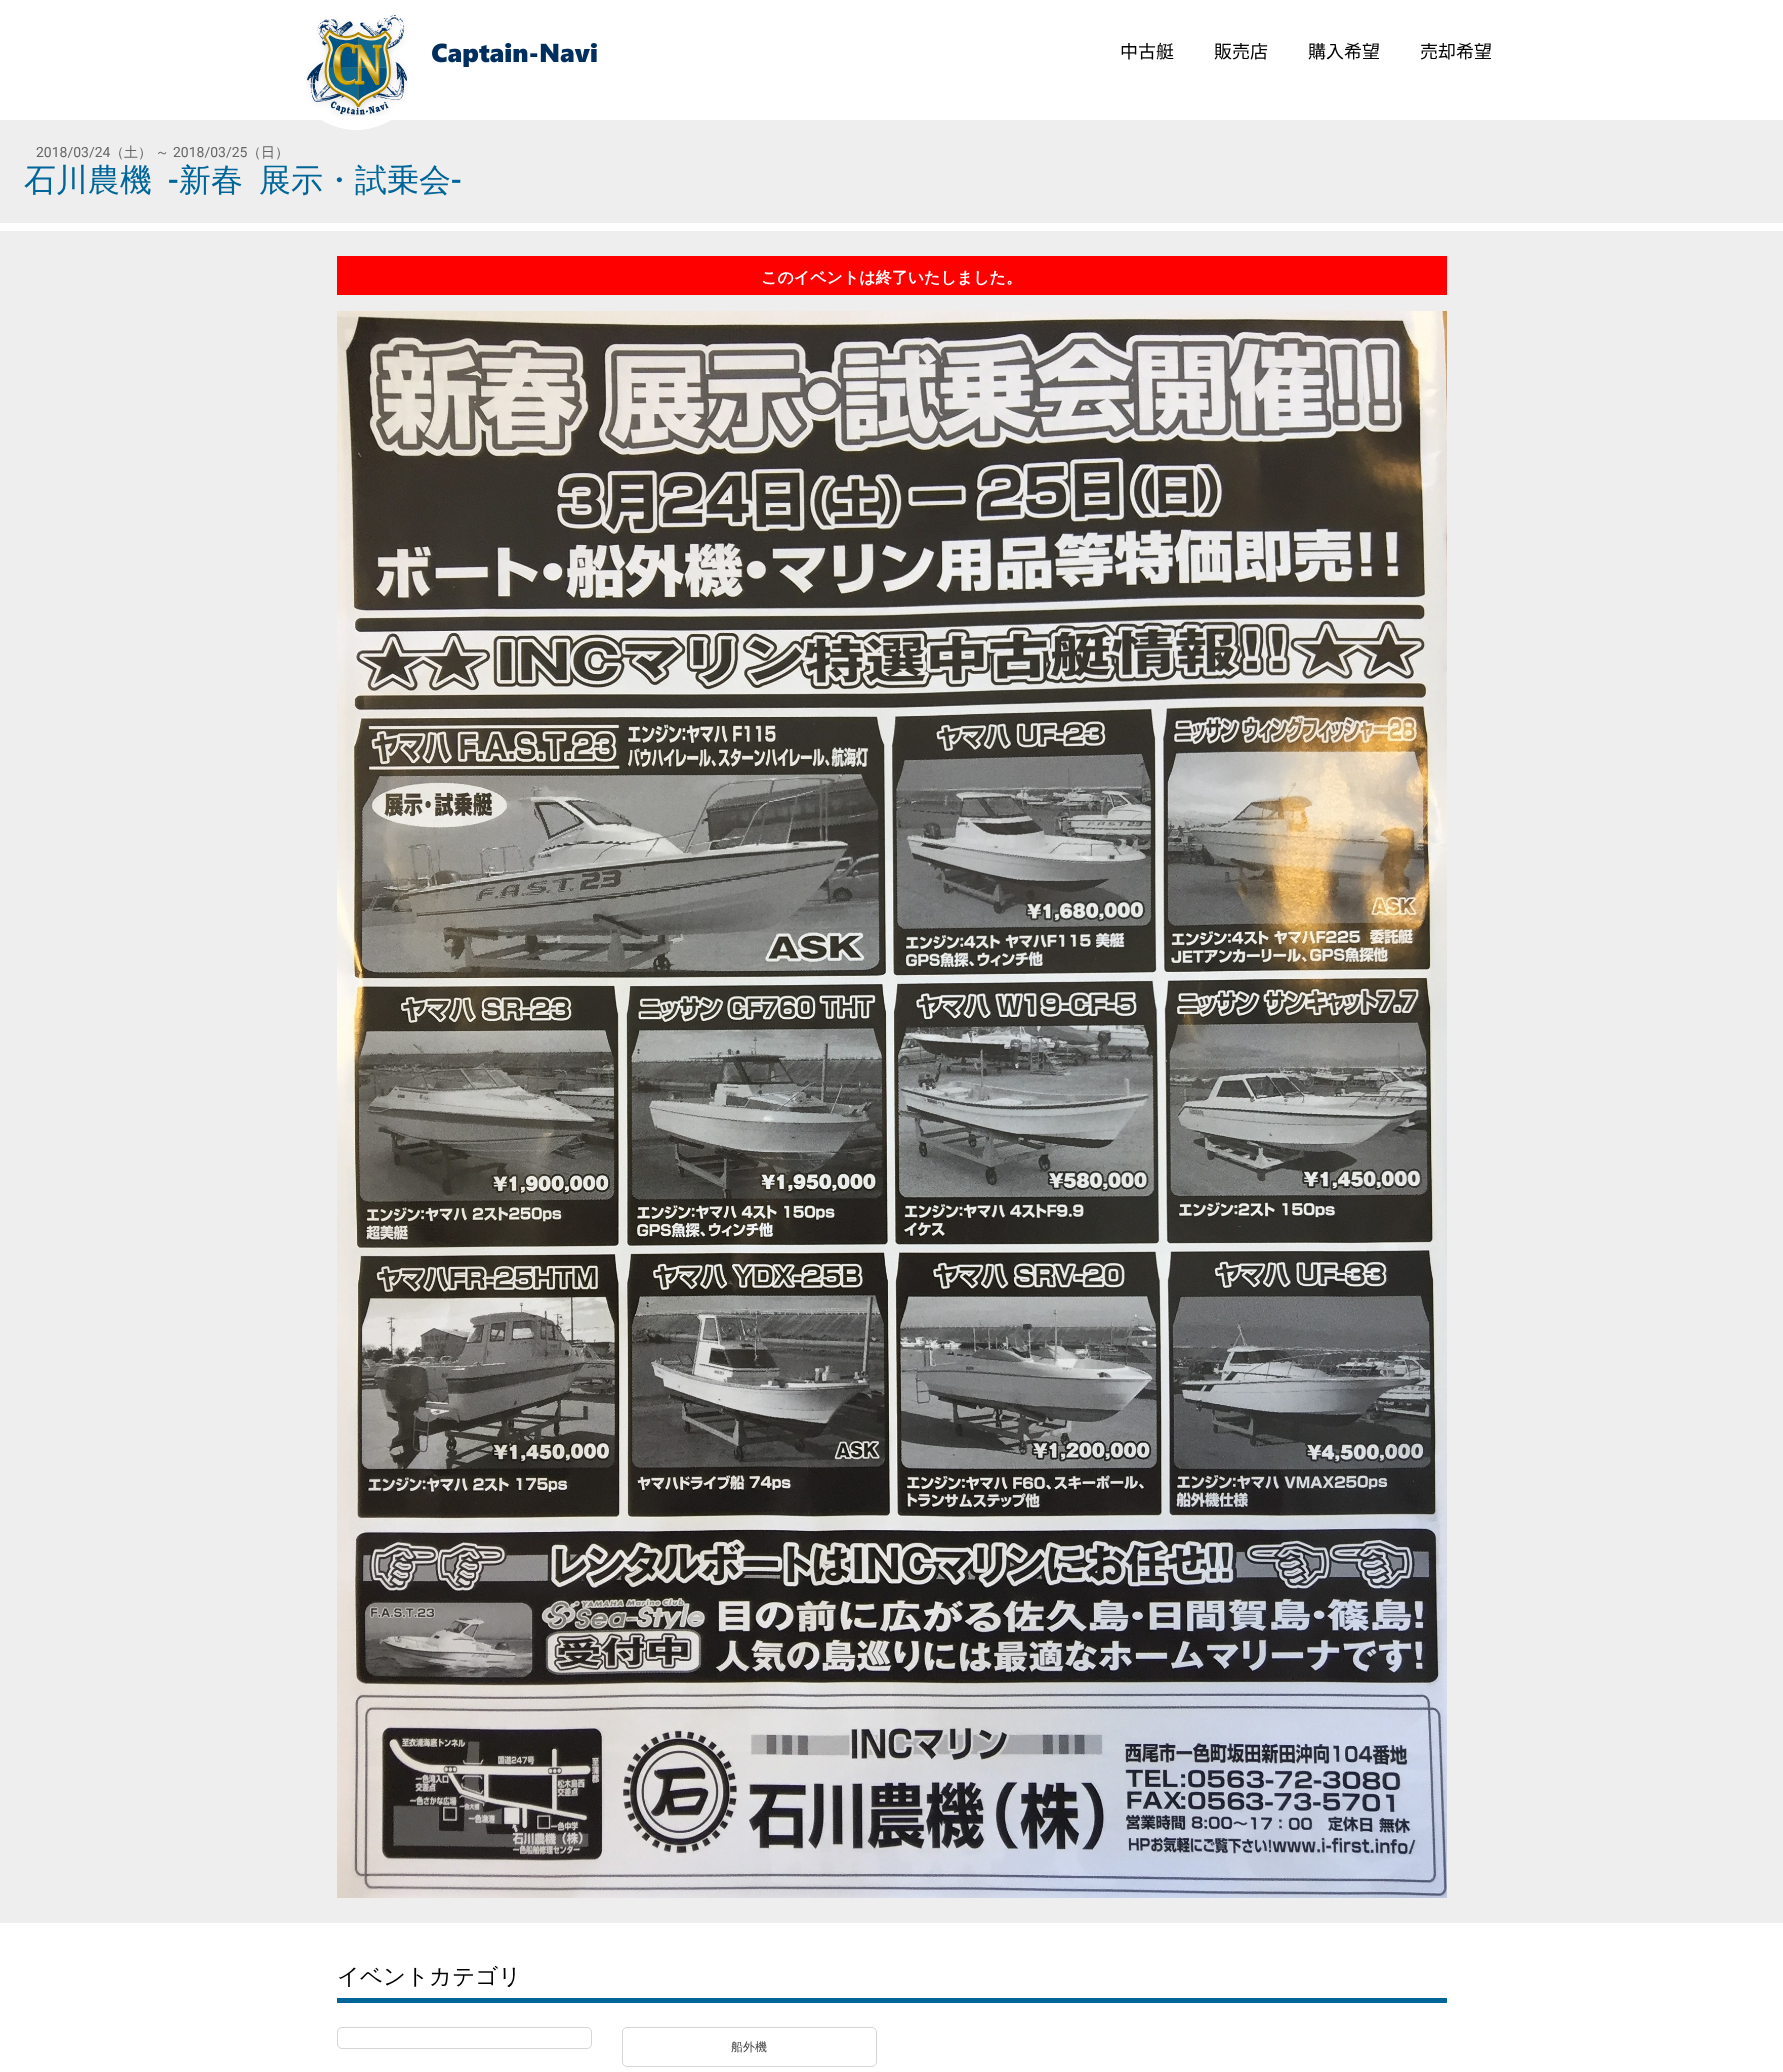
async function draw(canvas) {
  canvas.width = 1783
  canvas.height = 2072
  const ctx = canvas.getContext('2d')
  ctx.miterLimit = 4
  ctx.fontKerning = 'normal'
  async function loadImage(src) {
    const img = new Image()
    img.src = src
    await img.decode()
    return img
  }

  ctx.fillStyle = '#fff'
  ctx.fillRect(0, 0, 1783, 2072)
  ctx.fillStyle = '#eee'
  ctx.fillRect(0, 120, 1783, 103)
  ctx.fillStyle = '#fff'
  ctx.beginPath()
  ctx.moveTo(356, 0)
  ctx.bezierCurveTo(323, 0, 296, 25, 292, 57)
  ctx.lineTo(292, 73)
  ctx.bezierCurveTo(296, 105, 323, 130, 356, 130)
  ctx.bezierCurveTo(392, 130, 422, 101, 422, 65)
  ctx.bezierCurveTo(422, 29, 392, 0, 356, 0)
  ctx.closePath()
  ctx.fill()
  ctx.drawImage(await loadImage('image0.png'), 306, 15, 102, 101)
  ctx.drawImage(await loadImage('image1.png'), 432, 43, 165, 24)
  ctx.font = '18px Noto Sans JP'
  ctx.fillStyle = '#000'
  ctx.fillText('中古艇', 1120, 58)
  ctx.fillText('販売店', 1214, 58)
  ctx.fillText('購入希望', 1308, 58)
  ctx.fillText('売却希望', 1420, 58)
  ctx.font = '14px Roboto'
  ctx.fillStyle = '#666'
  ctx.fillText('2018/03/24', 36, 157)
  ctx.wordSpacing = '-1px'
  ctx.font = '500 14px WenQuanYi Zen Hei'
  ctx.fillText('（土） ～', 110, 157)
  ctx.wordSpacing = '0px'
  ctx.font = '14px Roboto'
  ctx.fillText('2018/03/25', 173, 157)
  ctx.font = '500 14px WenQuanYi Zen Hei'
  ctx.fillText('（日）', 247, 157)
  ctx.font = '500 32px WenQuanYi Zen Hei'
  ctx.fillStyle = '#069'
  ctx.fillText('石川農機', 24, 191)
  ctx.font = '500 32px Roboto'
  ctx.fillText('-', 168, 191)
  ctx.font = '500 32px WenQuanYi Zen Hei'
  ctx.fillText('新春', 179, 191)
  ctx.fillText('展示・試乗会', 259, 191)
  ctx.font = '500 32px Roboto'
  ctx.fillText('-', 451, 191)
  ctx.fillStyle = '#eee'
  ctx.fillRect(0, 231, 1783, 1692)
  ctx.fillStyle = '#f00'
  ctx.fillRect(337, 256, 1110, 39)
  ctx.font = 'bold 16px WenQuanYi Zen Hei'
  ctx.fillStyle = '#fff'
  ctx.fillText('このイベントは終了いたしました。', 761, 283)
  ctx.drawImage(await loadImage('image2.png'), 337, 311, 1110, 1587)
  ctx.fillStyle = '#069'
  ctx.fillRect(337, 1998, 1110, 5)
  ctx.font = '500 22.5px WenQuanYi Zen Hei'
  ctx.fillStyle = '#000'
  ctx.fillText('イベントカテゴリ', 337, 1984)
  ctx.beginPath()
  ctx.roundRect(337.5, 2027.5, 254, 21, 4.5)
  ctx.strokeStyle = '#d5d5d5'
  ctx.stroke()
  ctx.beginPath()
  ctx.roundRect(622.5, 2027.5, 254, 39, 4.5)
  ctx.stroke()
  ctx.font = '500 12px WenQuanYi Zen Hei'
  ctx.fillStyle = '#444'
  ctx.fillText('船外機', 731, 2051)
}

draw(document.querySelector('canvas'))
